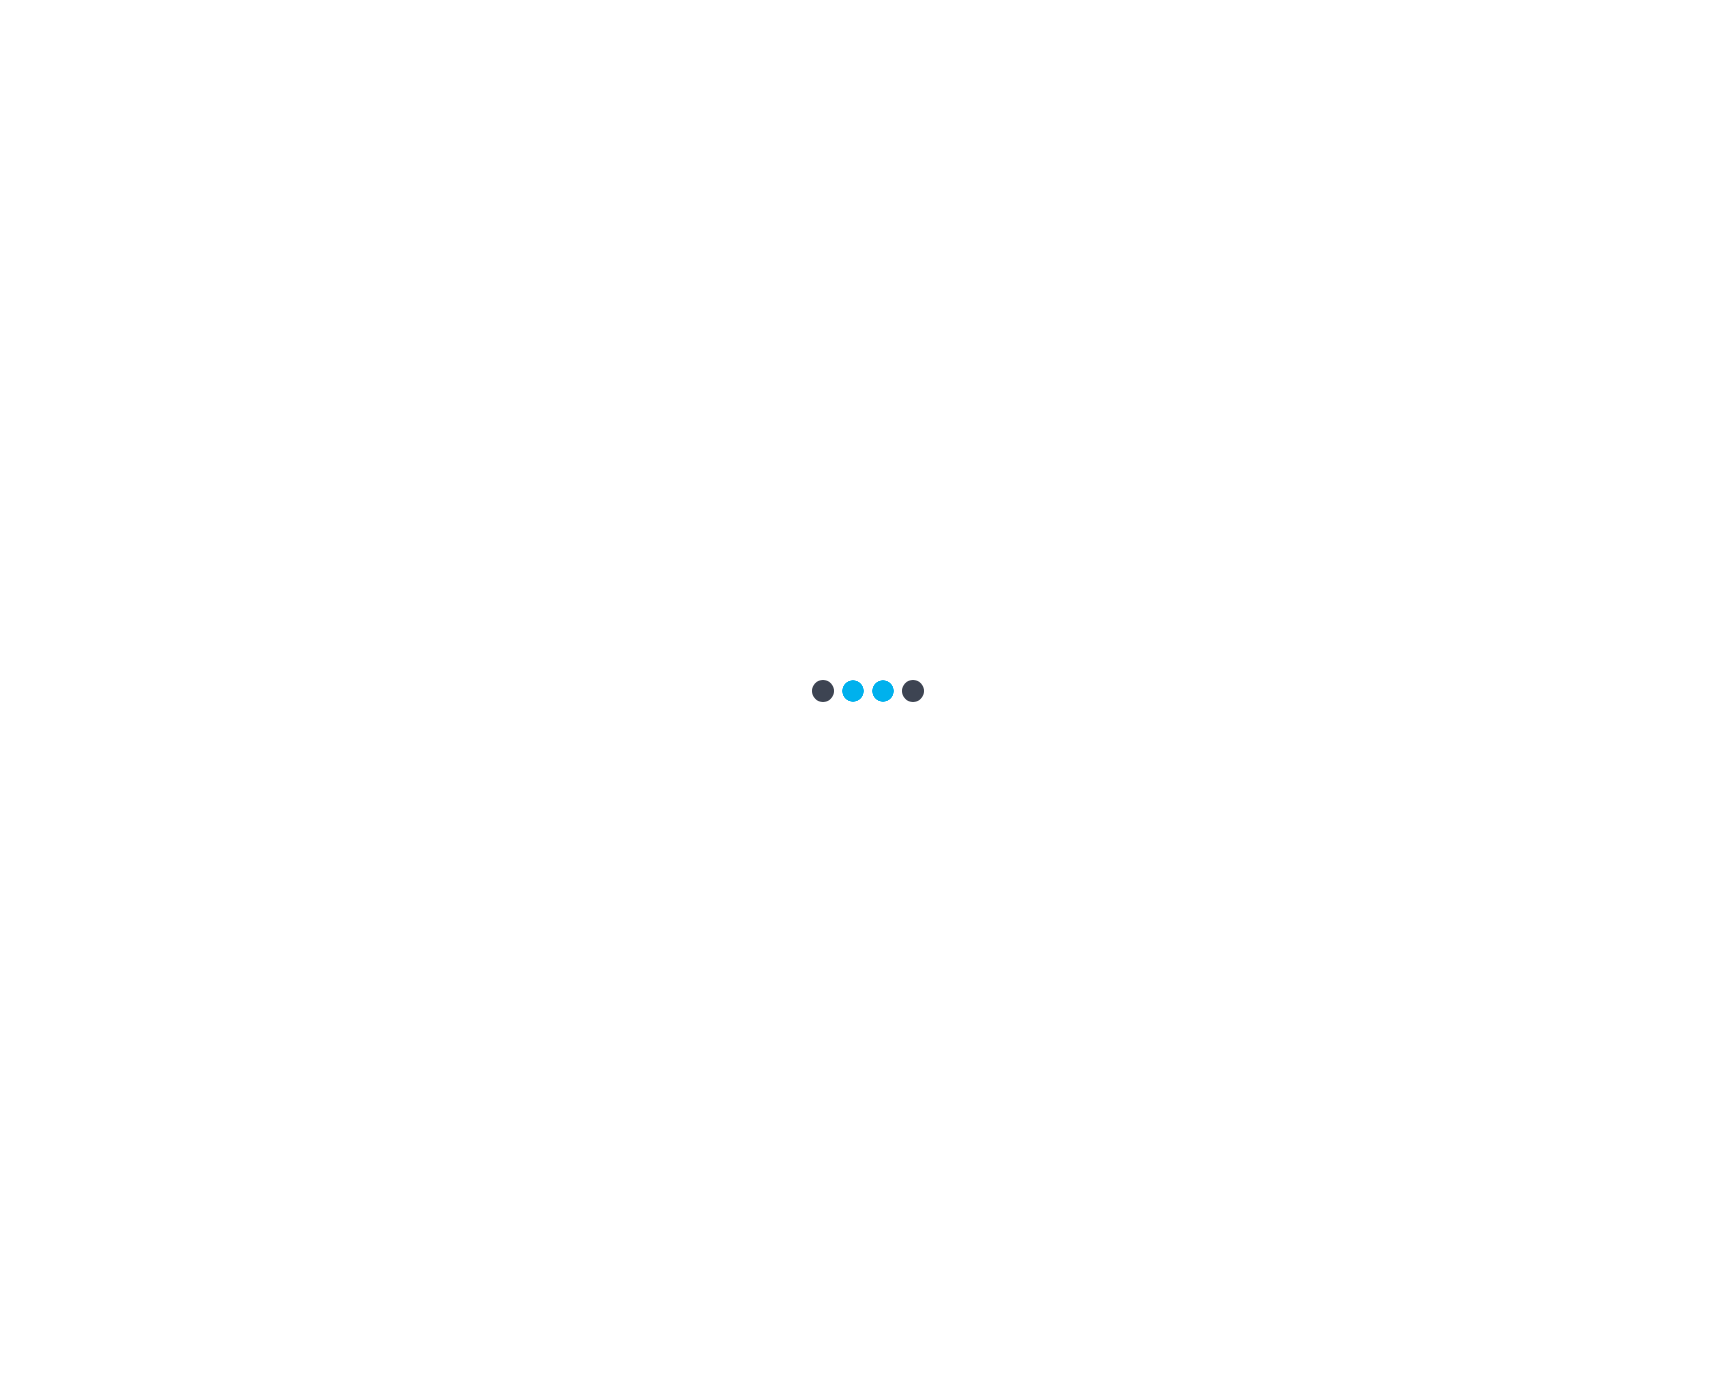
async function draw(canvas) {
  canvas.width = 1733
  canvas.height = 1379
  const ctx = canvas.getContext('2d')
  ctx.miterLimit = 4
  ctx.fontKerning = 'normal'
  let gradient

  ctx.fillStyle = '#fff'
  ctx.fillRect(0, 0, 1733, 1379)
  gradient = ctx.createRadialGradient(883, 691, 0, 883, 691, 11)
  gradient.addColorStop(0.95, '#00b1ed')
  gradient.addColorStop(1, '#fff')
  ctx.fillStyle = gradient
  ctx.fillRect(872, 680, 22, 22)
  gradient = ctx.createRadialGradient(853, 691, 0, 853, 691, 11)
  gradient.addColorStop(0.95, '#00b1ed')
  gradient.addColorStop(1, '#fff')
  ctx.fillStyle = gradient
  ctx.fillRect(842, 680, 22, 22)
  ctx.fillStyle = '#3d4452'
  ctx.beginPath()
  ctx.arc(823, 691, 11, 0, 2 * Math.PI)
  ctx.fill()
  ctx.beginPath()
  ctx.arc(913, 691, 11, 0, 2 * Math.PI)
  ctx.fill()
}

draw(document.querySelector('canvas'))
